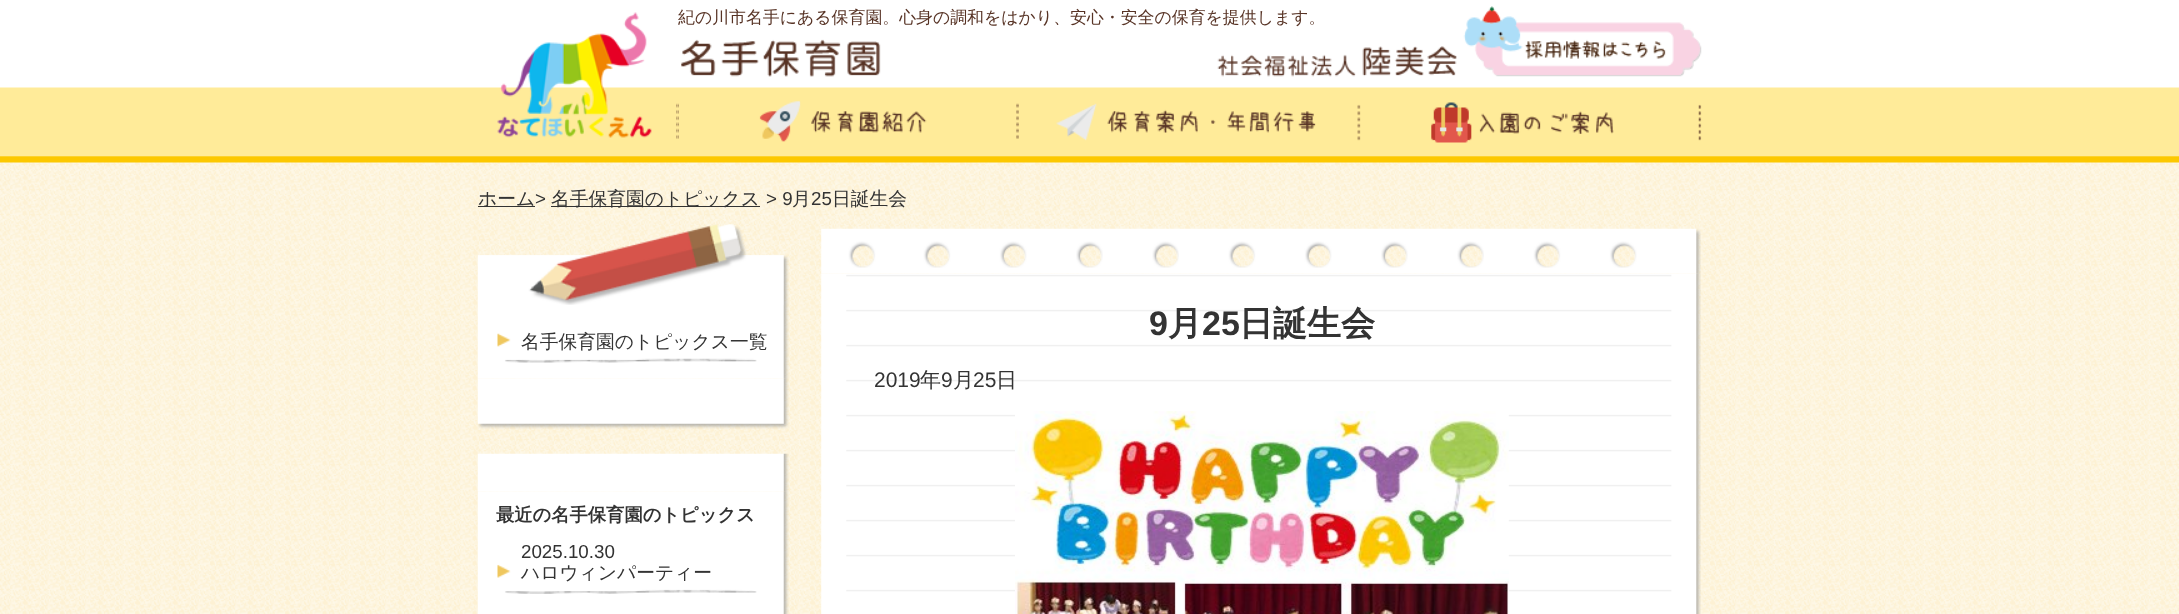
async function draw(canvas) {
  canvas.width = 2179
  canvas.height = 614
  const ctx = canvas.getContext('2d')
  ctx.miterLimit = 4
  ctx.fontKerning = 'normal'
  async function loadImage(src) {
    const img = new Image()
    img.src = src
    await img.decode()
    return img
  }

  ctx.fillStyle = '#fff'
  ctx.fillRect(0, 0, 2179, 614)
  ctx.drawImage(await loadImage('image0.png'), 0, 162, 2179, 452)
  ctx.drawImage(await loadImage('image1.png'), 0, 0, 2179, 163)
  ctx.font = '500 16.9px WenQuanYi Zen Hei'
  ctx.fillStyle = '#573325'
  ctx.fillText('紀の川市名手にある保育園。心身の調和をはかり、安心・安全の保育を提供します。', 678, 23)
  ctx.drawImage(await loadImage('image2.png'), 497, 12, 181, 127)
  ctx.drawImage(await loadImage('image3.png'), 1463, 6, 239, 71)
  ctx.drawImage(await loadImage('image4.png'), 681, 39, 200, 38)
  ctx.drawImage(await loadImage('image5.png'), 1217, 46, 240, 31)
  ctx.drawImage(await loadImage('image6.png'), 677, 101, 341, 41)
  ctx.drawImage(await loadImage('image7.png'), 1017, 103, 342, 38)
  ctx.drawImage(await loadImage('image8.png'), 1358, 102, 344, 41)
  ctx.fillStyle = '#333'
  ctx.fillRect(478, 206, 57, 1)
  ctx.font = '500 18.75px WenQuanYi Zen Hei'
  ctx.fillText('ホーム', 478, 205)
  ctx.font = '18.75px Liberation Sans'
  ctx.fillText('>', 535, 205)
  ctx.fillRect(551, 206, 209, 1)
  ctx.font = '500 18.75px WenQuanYi Zen Hei'
  ctx.fillText('名手保育園のトピックス', 551, 205)
  ctx.font = '18.75px Liberation Sans'
  ctx.fillText('> 9', 766, 205)
  ctx.font = '500 18.75px WenQuanYi Zen Hei'
  ctx.fillText('月', 792, 205)
  ctx.font = '18.75px Liberation Sans'
  ctx.fillText('25', 811, 205)
  ctx.font = '500 18.75px WenQuanYi Zen Hei'
  ctx.fillText('日誕生会', 832, 205)
  ctx.drawImage(await loadImage('image9.png'), 477, 224, 312, 81)
  ctx.drawImage(await loadImage('image10.png'), 477, 305, 312, 74)
  ctx.drawImage(await loadImage('image11.png'), 497, 333, 260, 30)
  ctx.fillText('名手保育園のトピックス一覧', 521, 348)
  ctx.drawImage(await loadImage('image12.png'), 477, 378, 312, 51)
  ctx.drawImage(await loadImage('image13.png'), 477, 453, 312, 39)
  ctx.drawImage(await loadImage('image14.png'), 477, 491, 312, 123)
  ctx.font = 'bold 18.3px WenQuanYi Zen Hei'
  ctx.fillText('最近の名手保育園のトピックス', 496, 521)
  ctx.drawImage(await loadImage('image15.png'), 497, 564, 260, 30)
  ctx.font = '18.75px Liberation Sans'
  ctx.fillText('2025.10.30', 521, 558)
  ctx.font = '500 18.75px WenQuanYi Zen Hei'
  ctx.fillText('ハロウィンパーティー', 521, 579)
  ctx.drawImage(await loadImage('image16.png'), 821, 228, 880, 46)
  ctx.drawImage(await loadImage('image17.png'), 821, 273, 880, 341)
  ctx.font = 'bold 34px Liberation Sans'
  ctx.fillText('9', 1149, 335)
  ctx.font = 'bold 34px WenQuanYi Zen Hei'
  ctx.fillText('月', 1168, 335)
  ctx.font = 'bold 34px Liberation Sans'
  ctx.fillText('25', 1202, 335)
  ctx.font = 'bold 34px WenQuanYi Zen Hei'
  ctx.fillText('日誕生会', 1239, 335)
  ctx.font = '21px Liberation Sans'
  ctx.fillText('2019', 874, 387)
  ctx.font = '500 21px WenQuanYi Zen Hei'
  ctx.fillText('年', 920, 387)
  ctx.font = '21px Liberation Sans'
  ctx.fillText('9', 941, 387)
  ctx.font = '500 21px WenQuanYi Zen Hei'
  ctx.fillText('月', 953, 387)
  ctx.font = '21px Liberation Sans'
  ctx.fillText('25', 973, 387)
  ctx.font = '500 21px WenQuanYi Zen Hei'
  ctx.fillText('日', 996, 387)
  ctx.drawImage(await loadImage('image18.png'), 1015, 411, 494, 203)
}

draw(document.querySelector('canvas'))
